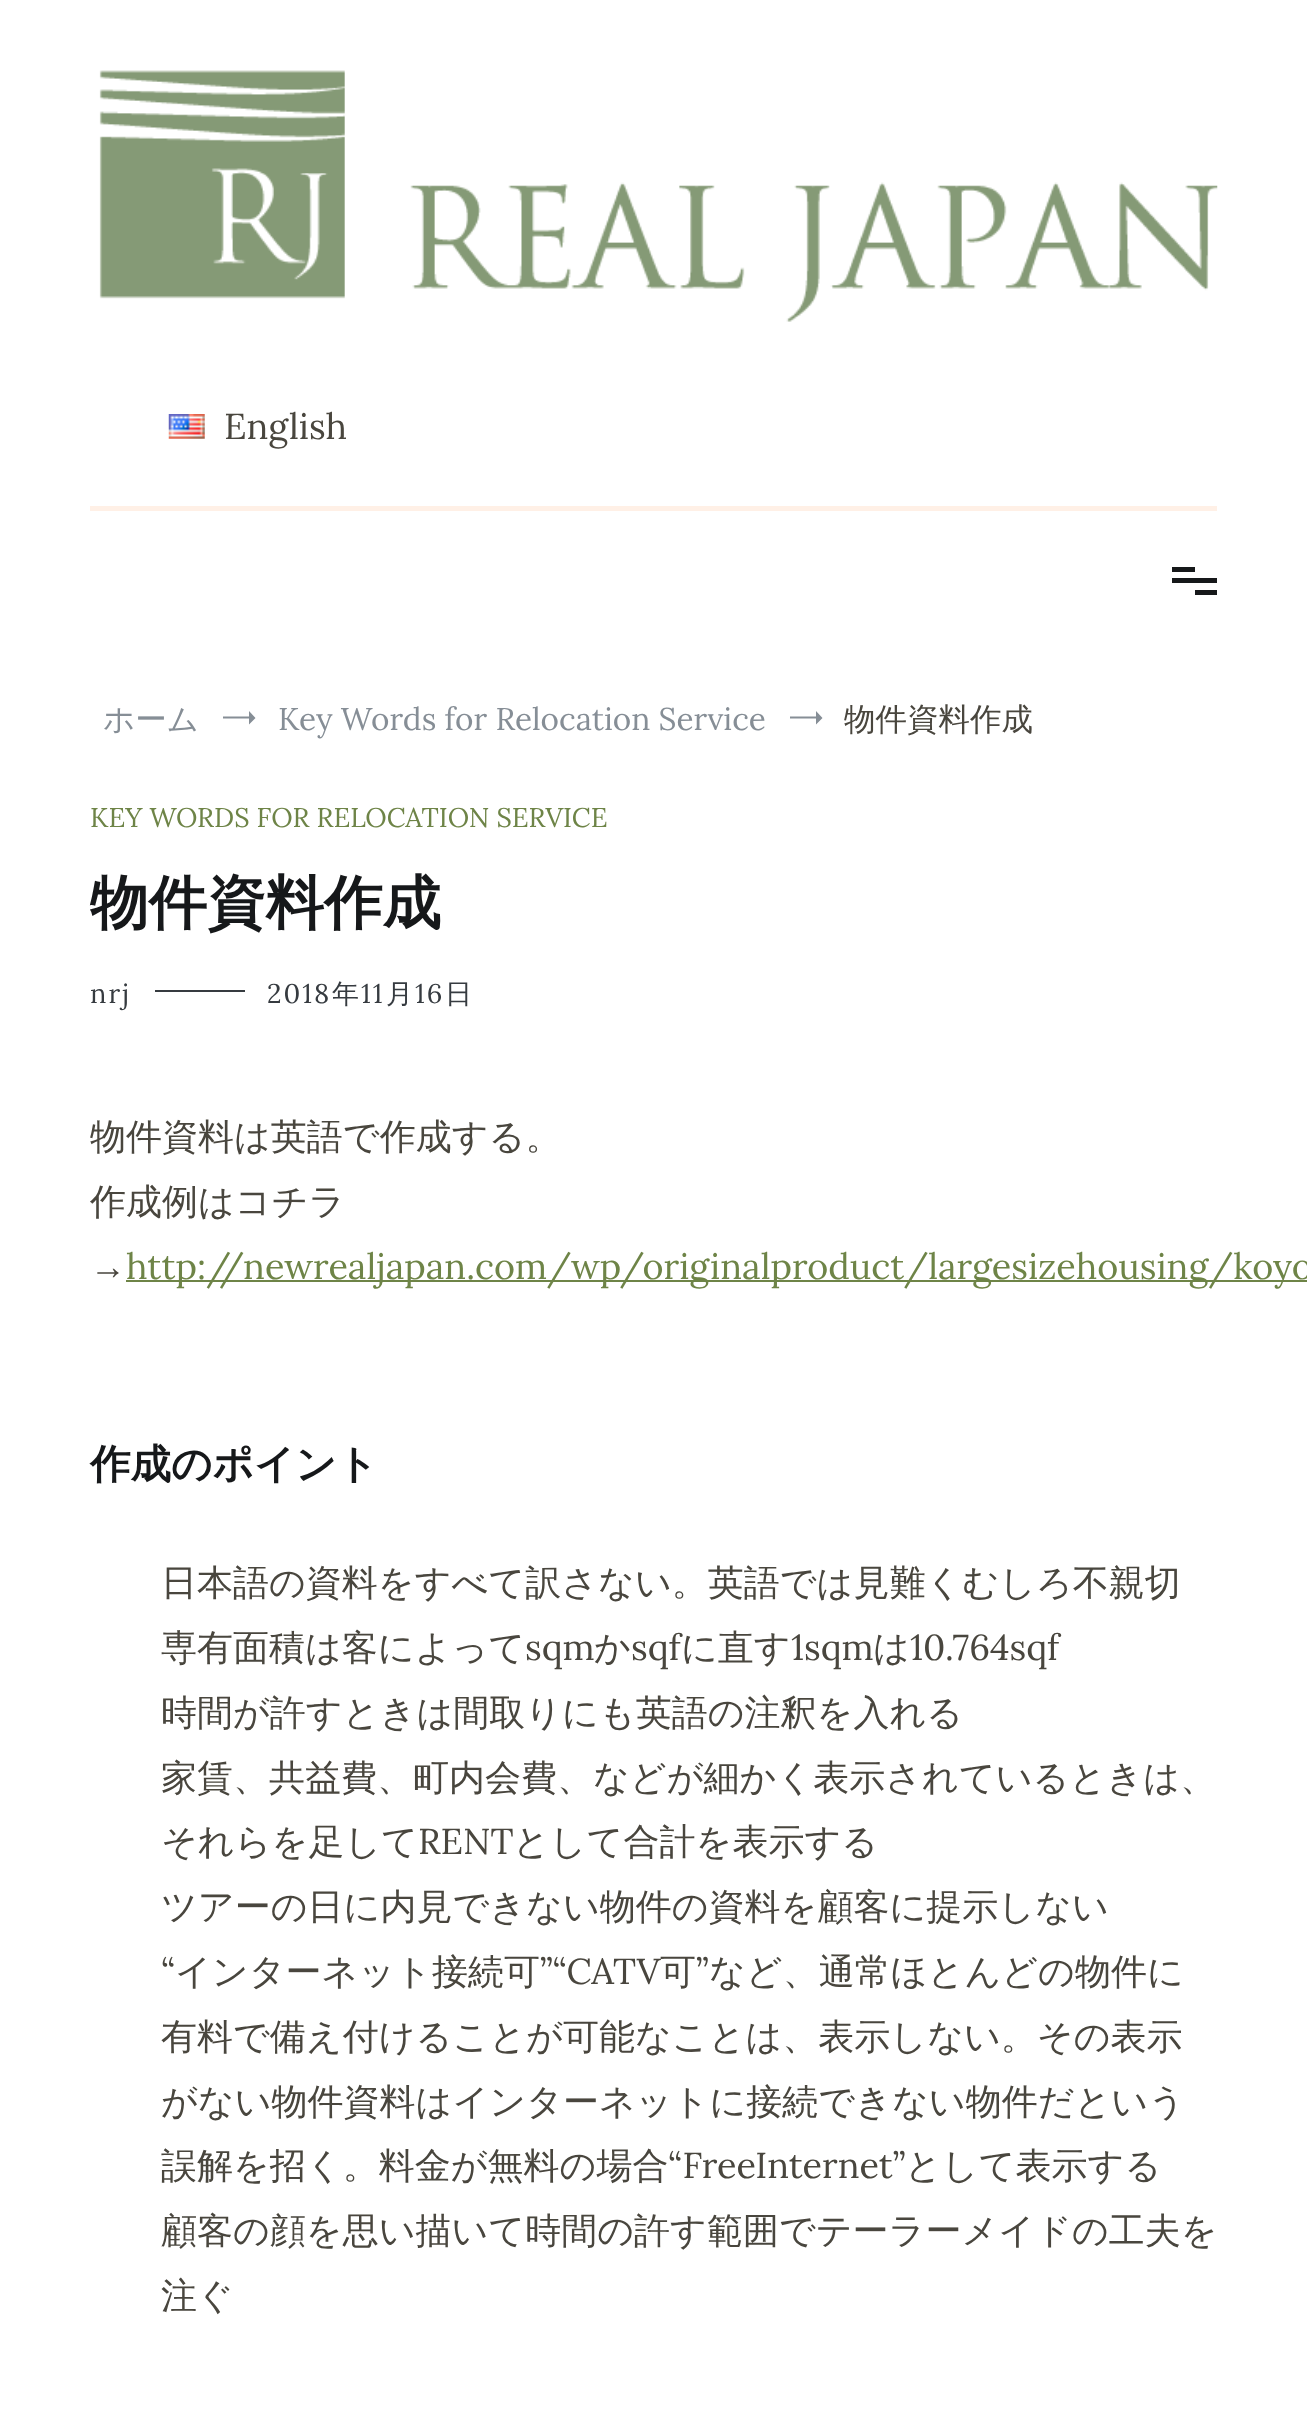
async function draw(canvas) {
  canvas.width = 1307
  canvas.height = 2416
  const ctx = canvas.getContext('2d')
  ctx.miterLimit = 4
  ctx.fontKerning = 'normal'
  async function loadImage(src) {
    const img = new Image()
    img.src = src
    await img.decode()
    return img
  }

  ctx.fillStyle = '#fff'
  ctx.fillRect(0, 0, 1307, 2416)
  ctx.drawImage(await loadImage('image0.png'), 99, 70, 1119, 252)
  ctx.drawImage(await loadImage('image1.png'), 168, 414, 37, 25)
  ctx.font = '36px Lora'
  ctx.fillStyle = '#49463e'
  ctx.fillText('English', 224, 439)
  ctx.fillStyle = '#fff0e6'
  ctx.fillRect(90, 506, 1127, 5)
  ctx.fillStyle = '#16181a'
  ctx.fillRect(1172, 567, 23, 5)
  ctx.fillRect(1172, 578, 45, 5)
  ctx.fillRect(1195, 590, 22, 5)
  ctx.font = '500 31.5px WenQuanYi Zen Hei'
  ctx.fillStyle = '#868e96'
  ctx.fillText('ホーム', 103, 730)
  ctx.beginPath()
  ctx.moveTo(255.5, 718)
  ctx.lineTo(249, 724.5)
  ctx.lineTo(249, 711)
  ctx.closePath()
  ctx.moveTo(223, 716.5)
  ctx.lineTo(249, 716.5)
  ctx.lineTo(249, 718.5)
  ctx.lineTo(223, 718.5)
  ctx.closePath()
  ctx.fill()
  ctx.font = '31.5px Lora'
  ctx.fillText('Key Words for Relocation Service', 278, 730)
  ctx.beginPath()
  ctx.moveTo(822.5, 718)
  ctx.lineTo(816, 724.5)
  ctx.lineTo(816, 711)
  ctx.closePath()
  ctx.moveTo(790, 716.5)
  ctx.lineTo(816, 716.5)
  ctx.lineTo(816, 718.5)
  ctx.lineTo(790, 718.5)
  ctx.closePath()
  ctx.fill()
  ctx.font = '500 31.5px WenQuanYi Zen Hei'
  ctx.fillStyle = '#49463e'
  ctx.fillText('物件資料作成', 844, 730)
  ctx.font = '27px Lora'
  ctx.fillStyle = '#6e8447'
  ctx.fillText('KEY WORDS FOR RELOCATION SERVICE', 90, 827)
  ctx.font = 'bold 58.5px WenQuanYi Zen Hei'
  ctx.fillStyle = '#16181a'
  ctx.fillText('物件資料作成', 90, 923)
  ctx.letterSpacing = '2px'
  ctx.font = '27px Lora'
  ctx.fillStyle = '#363b40'
  ctx.fillText('nrj', 90, 1003)
  ctx.fillRect(155, 990, 90, 2)
  ctx.fillText('2018', 267, 1003)
  ctx.font = '500 27px WenQuanYi Zen Hei'
  ctx.fillText('年', 332, 1003)
  ctx.font = '27px Lora'
  ctx.fillText('11', 361, 1003)
  ctx.font = '500 27px WenQuanYi Zen Hei'
  ctx.fillText('月', 386, 1003)
  ctx.font = '27px Lora'
  ctx.fillText('16', 415, 1003)
  ctx.font = '500 27px WenQuanYi Zen Hei'
  ctx.fillText('日', 445, 1003)
  ctx.letterSpacing = '0px'
  ctx.font = '500 36px WenQuanYi Zen Hei'
  ctx.fillStyle = '#49463e'
  ctx.fillText('物件資料は英語で作成する。', 90, 1149)
  ctx.fillText('作成例はコチラ', 90, 1214)
  ctx.font = '36px Liberation Serif'
  ctx.fillText('→', 90, 1279)
  ctx.fillStyle = '#6e8447'
  ctx.fillRect(126, 1280, 1181, 2)
  ctx.font = '36px Lora'
  ctx.fillText('http://newrealjapan.com/wp/originalproduct/largesizehousing/koyo', 126, 1279)
  ctx.font = 'bold 40.5px WenQuanYi Zen Hei'
  ctx.fillStyle = '#16181a'
  ctx.fillText('作成のポイント', 90, 1478)
  ctx.font = '500 36px WenQuanYi Zen Hei'
  ctx.fillStyle = '#49463e'
  ctx.fillText('日本語の資料をすべて訳さない。英語では見難くむしろ不親切', 161, 1595)
  ctx.fillText('専有面積は客によって', 161, 1660)
  ctx.font = '36px Lora'
  ctx.fillText('sqm', 525, 1660)
  ctx.font = '500 36px WenQuanYi Zen Hei'
  ctx.fillText('か', 594, 1660)
  ctx.font = '36px Lora'
  ctx.fillText('sqf', 631, 1660)
  ctx.font = '500 36px WenQuanYi Zen Hei'
  ctx.fillText('に直す', 681, 1660)
  ctx.font = '36px Lora'
  ctx.fillText('1sqm', 791, 1660)
  ctx.font = '500 36px WenQuanYi Zen Hei'
  ctx.fillText('は', 873, 1660)
  ctx.font = '36px Lora'
  ctx.fillText('10.764sqf', 910, 1660)
  ctx.font = '500 36px WenQuanYi Zen Hei'
  ctx.fillText('時間が許すときは間取りにも英語の注釈を入れる', 161, 1725)
  ctx.fillText('家賃、共益費、町内会費、などが細かく表示されているときは、', 161, 1790)
  ctx.fillText('それらを足して', 161, 1854)
  ctx.font = '36px Lora'
  ctx.fillText('RENT', 418, 1854)
  ctx.font = '500 36px WenQuanYi Zen Hei'
  ctx.fillText('として合計を表示する', 513, 1854)
  ctx.fillText('ツアーの日に内見できない物件の資料を顧客に提示しない', 161, 1919)
  ctx.font = '36px Lora'
  ctx.fillText('“', 161, 1984)
  ctx.font = '500 36px WenQuanYi Zen Hei'
  ctx.fillText('インターネット接続可', 175, 1984)
  ctx.font = '36px Lora'
  ctx.fillText('”“CATV', 540, 1984)
  ctx.font = '500 36px WenQuanYi Zen Hei'
  ctx.fillText('可', 660, 1984)
  ctx.font = '36px Lora'
  ctx.fillText('”', 696, 1984)
  ctx.font = '500 36px WenQuanYi Zen Hei'
  ctx.fillText('など、通常ほとんどの物件に', 709, 1984)
  ctx.fillText('有料で備え付けることが可能なことは、表示しない。その表示', 161, 2049)
  ctx.fillText('がない物件資料はインターネットに接続できない物件だという', 161, 2114)
  ctx.fillText('誤解を招く。料金が無料の場合', 161, 2178)
  ctx.font = '36px Lora'
  ctx.fillText('“FreeInternet”', 668, 2178)
  ctx.font = '500 36px WenQuanYi Zen Hei'
  ctx.fillText('として表示する', 905, 2178)
  ctx.fillText('顧客の顔を思い描いて時間の許す範囲でテーラーメイドの工夫を', 161, 2243)
  ctx.fillText('注ぐ', 161, 2308)
}

draw(document.querySelector('canvas'))
